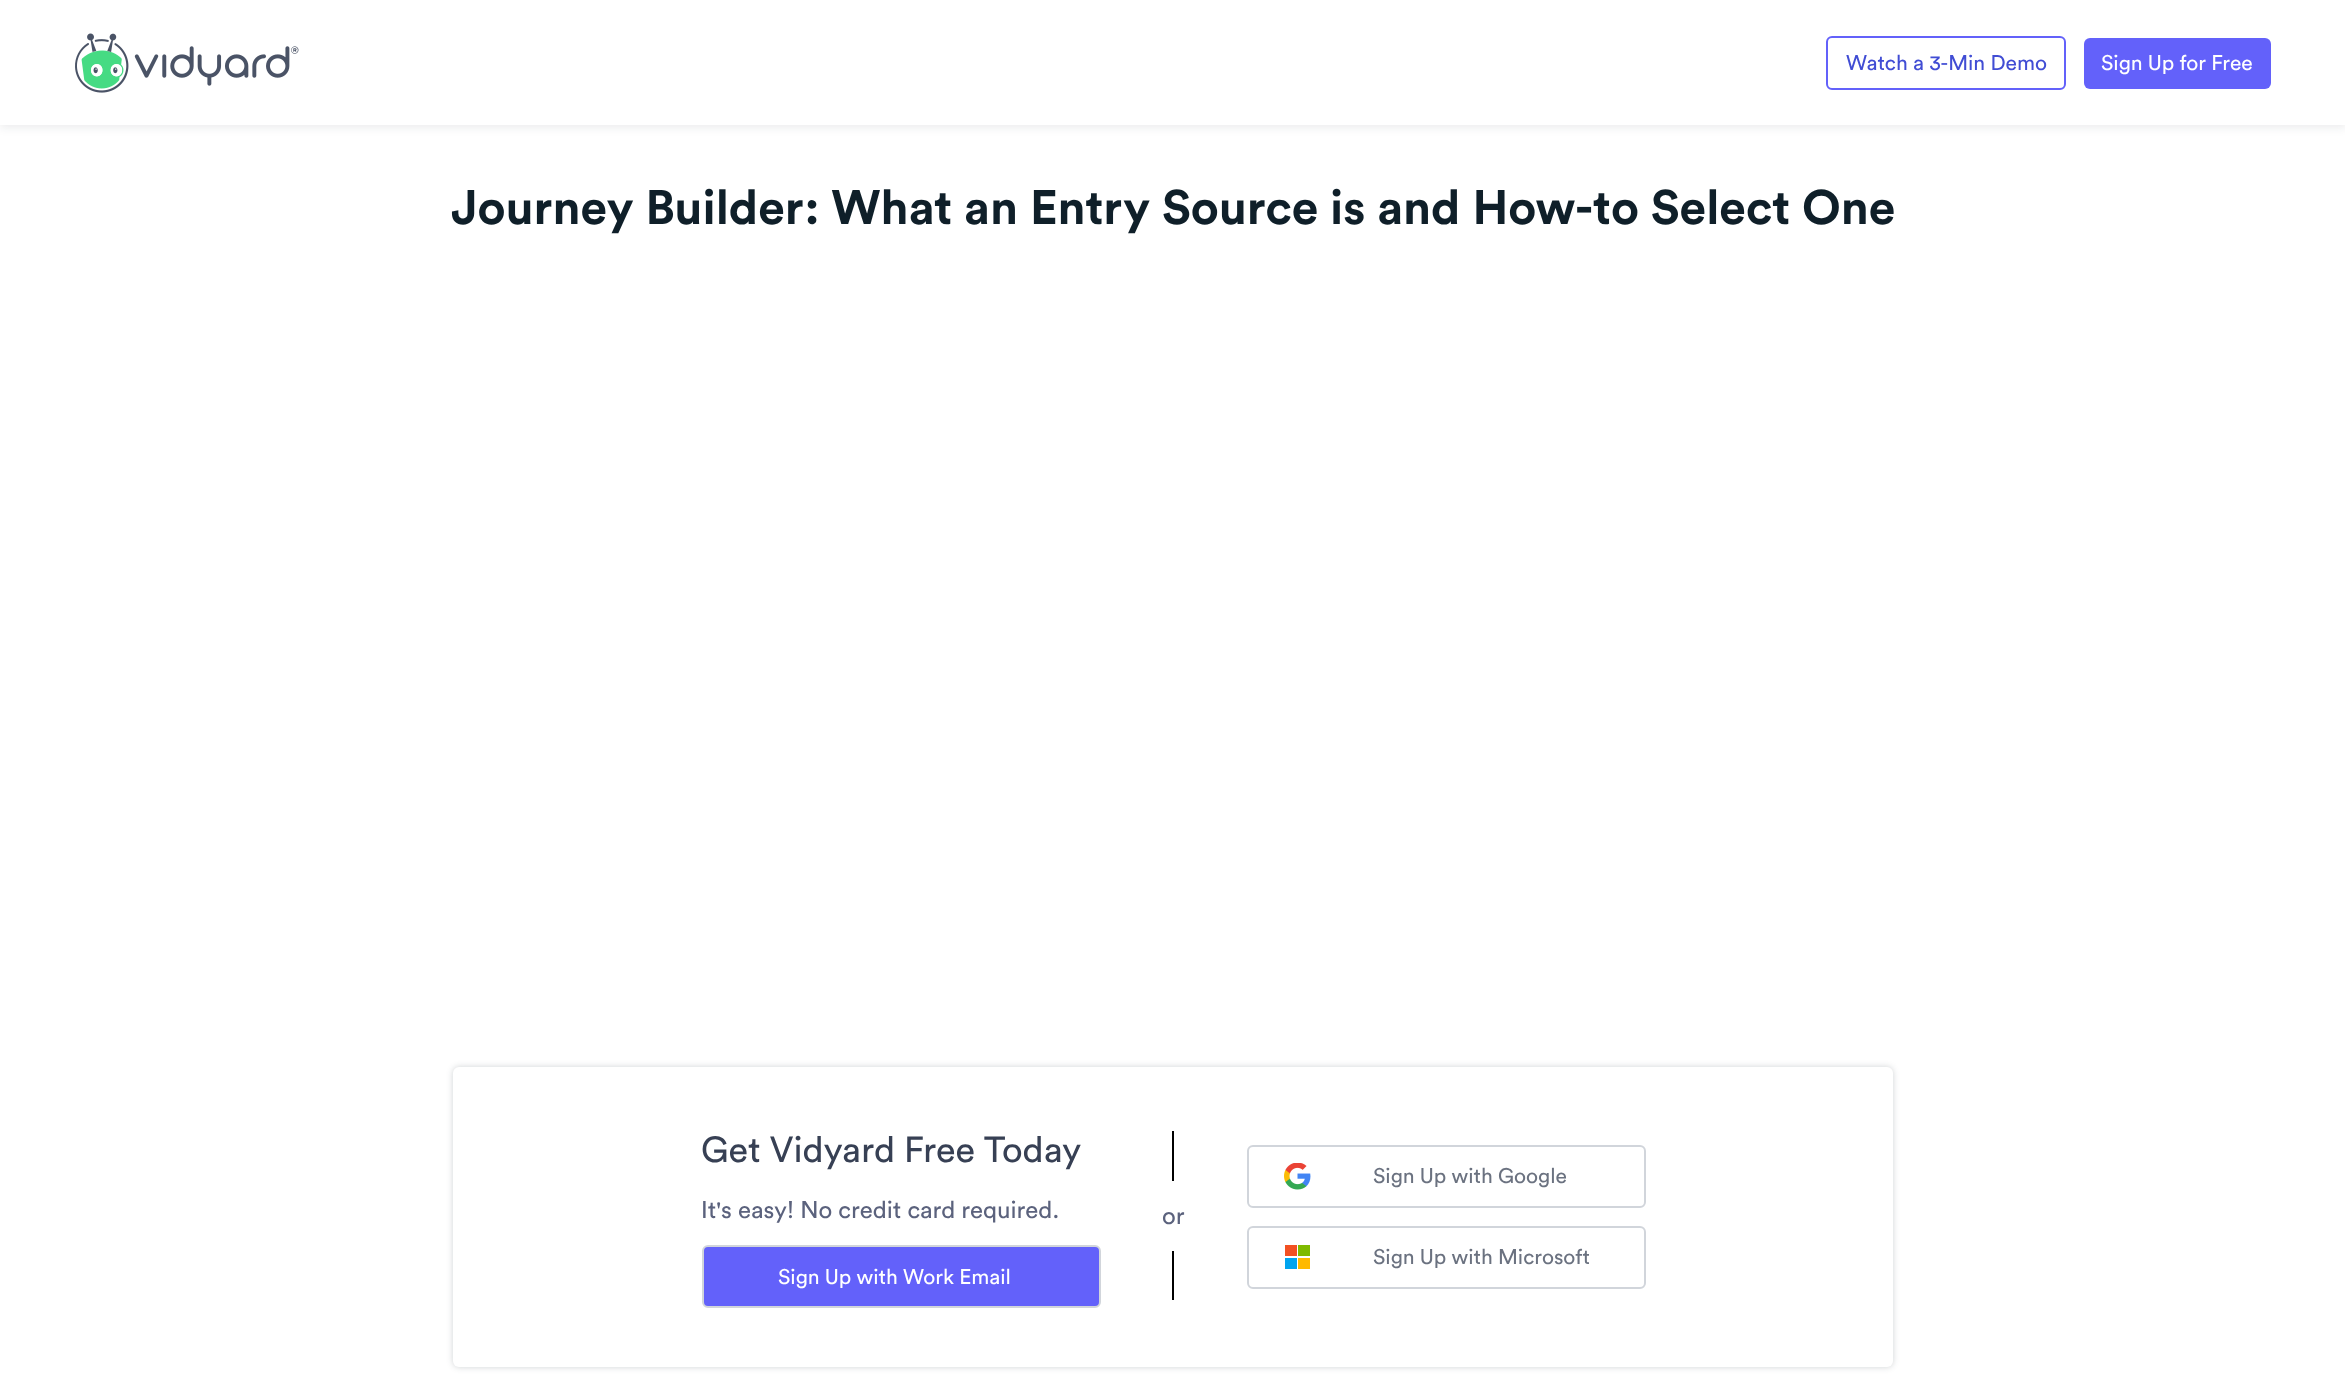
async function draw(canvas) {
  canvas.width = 2345
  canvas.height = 1388
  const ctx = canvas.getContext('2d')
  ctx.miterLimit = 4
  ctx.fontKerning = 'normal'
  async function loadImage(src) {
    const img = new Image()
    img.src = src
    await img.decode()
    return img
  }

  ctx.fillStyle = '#fff'
  ctx.fillRect(0, 0, 2345, 1388)
  ctx.fillStyle = '#0f1f2914'
  ctx.filter = 'blur(4.5px)'
  ctx.beginPath()
  ctx.rect(0, 3, 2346, 125)
  ctx.fill()
  ctx.filter = 'none'
  ctx.fillStyle = '#fff'
  ctx.fillRect(0, 0, 2345, 125)
  ctx.drawImage(await loadImage('image0.png'), 75, 33, 224, 60)
  ctx.beginPath()
  ctx.roundRect(1827, 37, 238, 52, 5)
  ctx.strokeStyle = '#6361fa'
  ctx.lineWidth = 2
  ctx.stroke()
  ctx.font = '21px Circular'
  ctx.fillStyle = '#414dd4'
  ctx.fillText('Watch a 3-Min Demo', 1846, 70)
  ctx.fillStyle = '#6361fa'
  ctx.beginPath()
  ctx.roundRect(2084, 38, 187, 51, 6)
  ctx.fill()
  ctx.fillStyle = '#fff'
  ctx.fillText('Sign Up for Free', 2101, 70)
  ctx.font = 'bold 48px Circular'
  ctx.fillStyle = '#0f1f29'
  ctx.fillText('Journey Builder: What an Entry Source is and How-to Select One', 451, 224)
  ctx.fillStyle = '#0f1f2933'
  ctx.filter = 'blur(3px)'
  ctx.beginPath()
  ctx.roundRect(453, 1067, 1440, 300, 6)
  ctx.fill()
  ctx.filter = 'none'
  ctx.fillStyle = '#fff'
  ctx.beginPath()
  ctx.roundRect(453, 1067, 1440, 300, 6)
  ctx.fill()
  ctx.font = '36px Circular'
  ctx.fillStyle = '#374054'
  ctx.fillText('Get Vidyard Free Today', 701, 1162)
  ctx.font = '24px Circular'
  ctx.fillStyle = '#5b627d'
  ctx.fillText('It\'s easy! No credit card required.', 701, 1218)
  ctx.fillStyle = '#6361fa'
  ctx.beginPath()
  ctx.roundRect(703, 1246, 397, 61, 5)
  ctx.fill()
  ctx.strokeStyle = '#d1d5db'
  ctx.stroke()
  ctx.font = '21px Circular'
  ctx.fillStyle = '#fff'
  ctx.fillText('Sign Up with Work Email', 778, 1284)
  ctx.fillStyle = '#000'
  ctx.fillRect(1172, 1131, 2, 50)
  ctx.font = '24px Circular'
  ctx.fillStyle = '#5b627d'
  ctx.fillText('or', 1162, 1224)
  ctx.fillStyle = '#000'
  ctx.fillRect(1172, 1251, 2, 49)
  ctx.beginPath()
  ctx.roundRect(1248, 1146, 397, 61, 5)
  ctx.stroke()
  ctx.drawImage(await loadImage('image1.png'), 1284, 1163, 27, 27)
  ctx.font = '21px Circular'
  ctx.fillStyle = '#6b7280'
  ctx.fillText('Sign Up with Google', 1373, 1183)
  ctx.beginPath()
  ctx.roundRect(1248, 1227, 397, 61, 5)
  ctx.stroke()
  ctx.fillStyle = '#f25022'
  ctx.fillRect(1285, 1245, 12, 11)
  ctx.fillStyle = '#00a4ef'
  ctx.fillRect(1285, 1258, 12, 11)
  ctx.fillStyle = '#7fba00'
  ctx.fillRect(1298, 1245, 12, 11)
  ctx.fillStyle = '#ffb900'
  ctx.fillRect(1298, 1258, 12, 11)
  ctx.fillStyle = '#6b7280'
  ctx.fillText('Sign Up with Microsoft', 1373, 1264)
}

draw(document.querySelector('canvas'))
